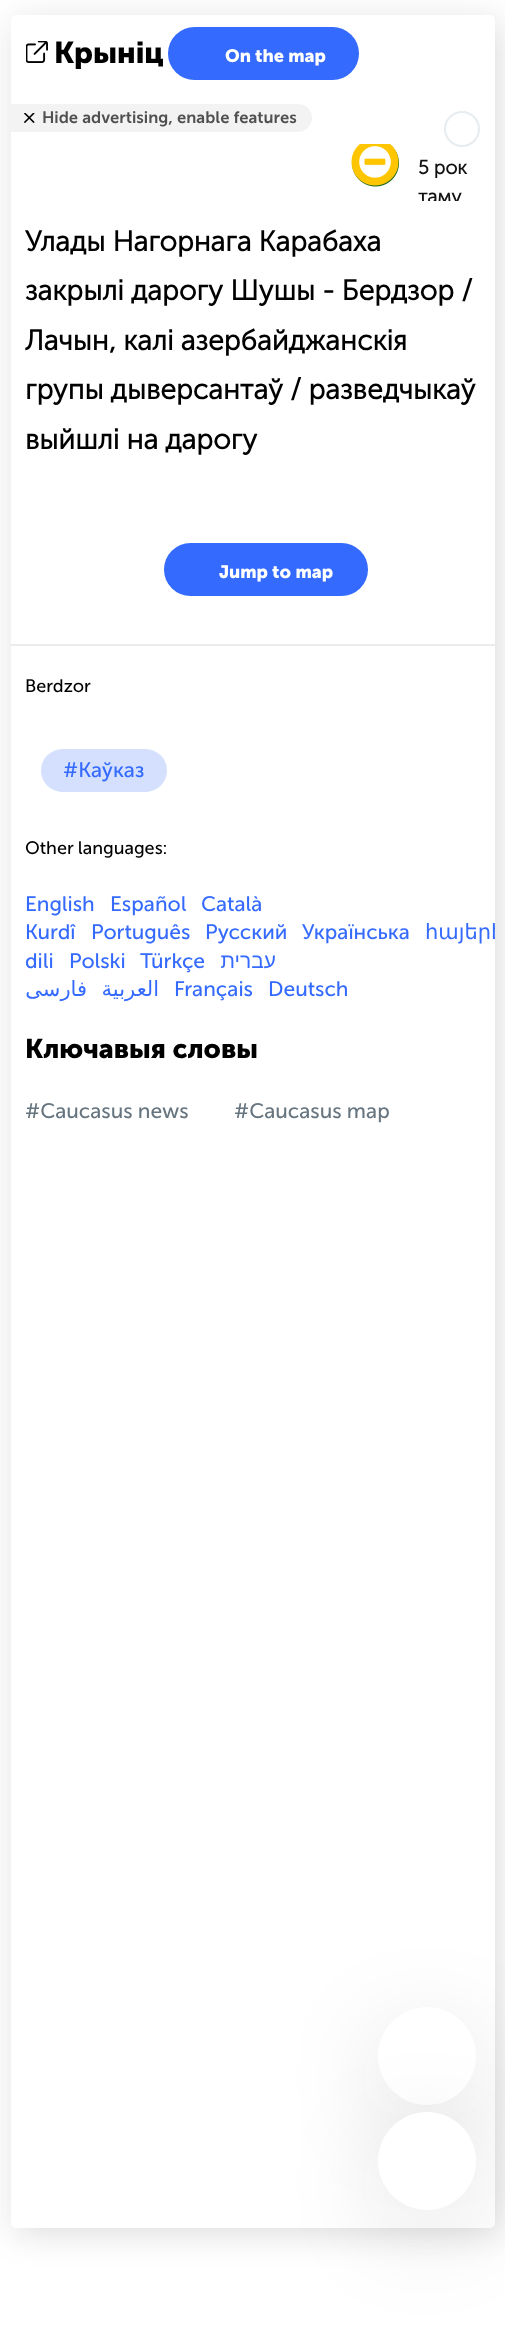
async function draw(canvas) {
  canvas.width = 505
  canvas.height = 2329
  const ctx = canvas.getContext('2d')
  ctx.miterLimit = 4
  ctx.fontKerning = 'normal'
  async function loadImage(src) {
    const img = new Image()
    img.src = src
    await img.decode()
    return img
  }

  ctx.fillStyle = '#fff'
  ctx.fillRect(0, 0, 505, 2329)
  ctx.fillStyle = '#100f0f24'
  ctx.filter = 'blur(16.5px)'
  ctx.beginPath()
  ctx.roundRect(15, 21, 485, 2213, 5)
  ctx.fill()
  ctx.filter = 'none'
  ctx.fillStyle = '#fff'
  ctx.beginPath()
  ctx.roundRect(11, 15, 484, 2213, 5)
  ctx.fill()
  ctx.drawImage(await loadImage('image0.png'), 26, 41, 22, 22)
  ctx.font = 'bold 30px "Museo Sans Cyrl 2"'
  ctx.fillStyle = '#000'
  ctx.fillText('Крыніц', 54, 63)
  ctx.fillStyle = '#346afe'
  ctx.beginPath()
  ctx.roundRect(168, 27, 191, 53, 26.5)
  ctx.fill()
  ctx.font = 'bold 18px "Museo Sans Cyrl 2"'
  ctx.fillStyle = '#fff'
  ctx.fillText('On the map', 225, 62)
  ctx.beginPath()
  ctx.arc(462, 129, 17, 0, 2 * Math.PI)
  ctx.strokeStyle = '#e6ecef'
  ctx.lineWidth = 2
  ctx.stroke()
  ctx.fillStyle = '#f3f3f3'
  ctx.beginPath()
  ctx.roundRect(11, 104, 301, 28, [0, 14, 14, 0])
  ctx.fill()
  ctx.drawImage(await loadImage('image1.png'), 24, 113, 11, 10)
  ctx.font = '600 16.5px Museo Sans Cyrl'
  ctx.fillStyle = '#505050'
  ctx.fillText('Hide advertising, enable features', 42, 123)
  ctx.drawImage(await loadImage('image2.png'), 351, 144, 48, 43)
  ctx.font = 'bold 19.5px Museo Sans Cyrl'
  ctx.fillStyle = '#111'
  ctx.fillText('5 рок', 418, 174)
  ctx.save()
  ctx.beginPath()
  ctx.rect(332, 144, 163, 57)
  ctx.clip()
  ctx.fillText('таму', 418, 203)
  ctx.restore()
  ctx.font = 'bold 28.5px Museo Sans Cyrl'
  ctx.fillStyle = '#000'
  ctx.fillText('Улады Нагорнага Карабаха', 25, 251)
  ctx.fillText('закрылі дарогу Шушы - Бердзор /', 25, 300)
  ctx.fillText('Лачын, калі азербайджанскія', 25, 350)
  ctx.fillText('групы дыверсантаў / разведчыкаў', 25, 399)
  ctx.fillText('выйшлі на дарогу', 25, 449)
  ctx.fillStyle = '#ececec'
  ctx.fillRect(11, 644, 484, 2)
  ctx.fillStyle = '#346afe'
  ctx.beginPath()
  ctx.roundRect(164, 543, 204, 53, 26.5)
  ctx.fill()
  ctx.font = 'bold 18px "Museo Sans Cyrl 2"'
  ctx.fillStyle = '#fff'
  ctx.fillText('Jump to map', 219, 578)
  ctx.font = '18px Museo Sans Cyrl'
  ctx.fillStyle = '#000'
  ctx.fillText('Berdzor', 25, 692)
  ctx.fillStyle = '#d5e0ff'
  ctx.beginPath()
  ctx.roundRect(41, 749, 126, 43, 21.5)
  ctx.fill()
  ctx.font = '21px Museo Sans Cyrl'
  ctx.fillStyle = '#346afe'
  ctx.fillText('#Каўказ', 63, 777)
  ctx.font = '18px Museo Sans Cyrl'
  ctx.fillStyle = '#000'
  ctx.fillText('Other languages:', 25, 854)
  ctx.font = '21px Museo Sans Cyrl'
  ctx.fillStyle = '#346afe'
  ctx.fillText('English', 25, 911)
  ctx.fillText('Español', 110, 911)
  ctx.fillText('Català', 201, 911)
  ctx.fillText('Kurdî', 25, 939)
  ctx.fillText('Português', 91, 939)
  ctx.fillText('Русский', 205, 939)
  ctx.fillText('Українська', 302, 939)
  ctx.save()
  ctx.beginPath()
  ctx.roundRect(11, 15, 484, 2213, 5)
  ctx.clip()
  ctx.font = '21px DejaVu Sans'
  ctx.fillText('հայերէ', 425, 939)
  ctx.restore()
  ctx.fillText('dili', 25, 968)
  ctx.fillText('Polski', 69, 968)
  ctx.fillText('Türkçe', 140, 968)
  ctx.direction = 'rtl'
  ctx.font = '21px Liberation Sans'
  ctx.fillText('עברית', 276, 968)
  ctx.font = '21px DejaVu Sans'
  ctx.fillText('فارسی', 87, 996)
  ctx.fillText('العربية', 159, 996)
  ctx.direction = 'ltr'
  ctx.font = '21px Museo Sans Cyrl'
  ctx.fillText('Français', 174, 996)
  ctx.fillText('Deutsch', 268, 996)
  ctx.font = 'bold 27px "Museo Sans Cyrl 2"'
  ctx.fillStyle = '#000'
  ctx.fillText('Ключавыя словы', 25, 1058)
  ctx.font = '21px Museo Sans Cyrl'
  ctx.fillStyle = '#66757f'
  ctx.fillText('#Caucasus news', 25, 1118)
  ctx.fillText('#Caucasus map', 234, 1118)
  ctx.fillStyle = '#100f0f24'
  ctx.filter = 'blur(49px)'
  ctx.beginPath()
  ctx.roundRect(381, 2033, 92, 91, 45.5)
  ctx.fill()
  ctx.filter = 'none'
  ctx.fillStyle = '#fff'
  ctx.beginPath()
  ctx.arc(427, 2056, 49, 0, 2 * Math.PI)
  ctx.fill()
  ctx.fillStyle = '#100f0f24'
  ctx.filter = 'blur(49px)'
  ctx.beginPath()
  ctx.roundRect(381, 2138, 92, 91, 45.5)
  ctx.fill()
  ctx.filter = 'none'
  ctx.fillStyle = '#fff'
  ctx.beginPath()
  ctx.moveTo(427, 2210)
  ctx.bezierCurveTo(400, 2210, 378, 2188, 378, 2161)
  ctx.bezierCurveTo(378, 2134, 400, 2112, 427, 2112)
  ctx.bezierCurveTo(454, 2112, 476, 2134, 476, 2161)
  ctx.bezierCurveTo(476, 2188, 454, 2210, 427, 2210)
  ctx.closePath()
  ctx.fill()
}

draw(document.querySelector('canvas'))
